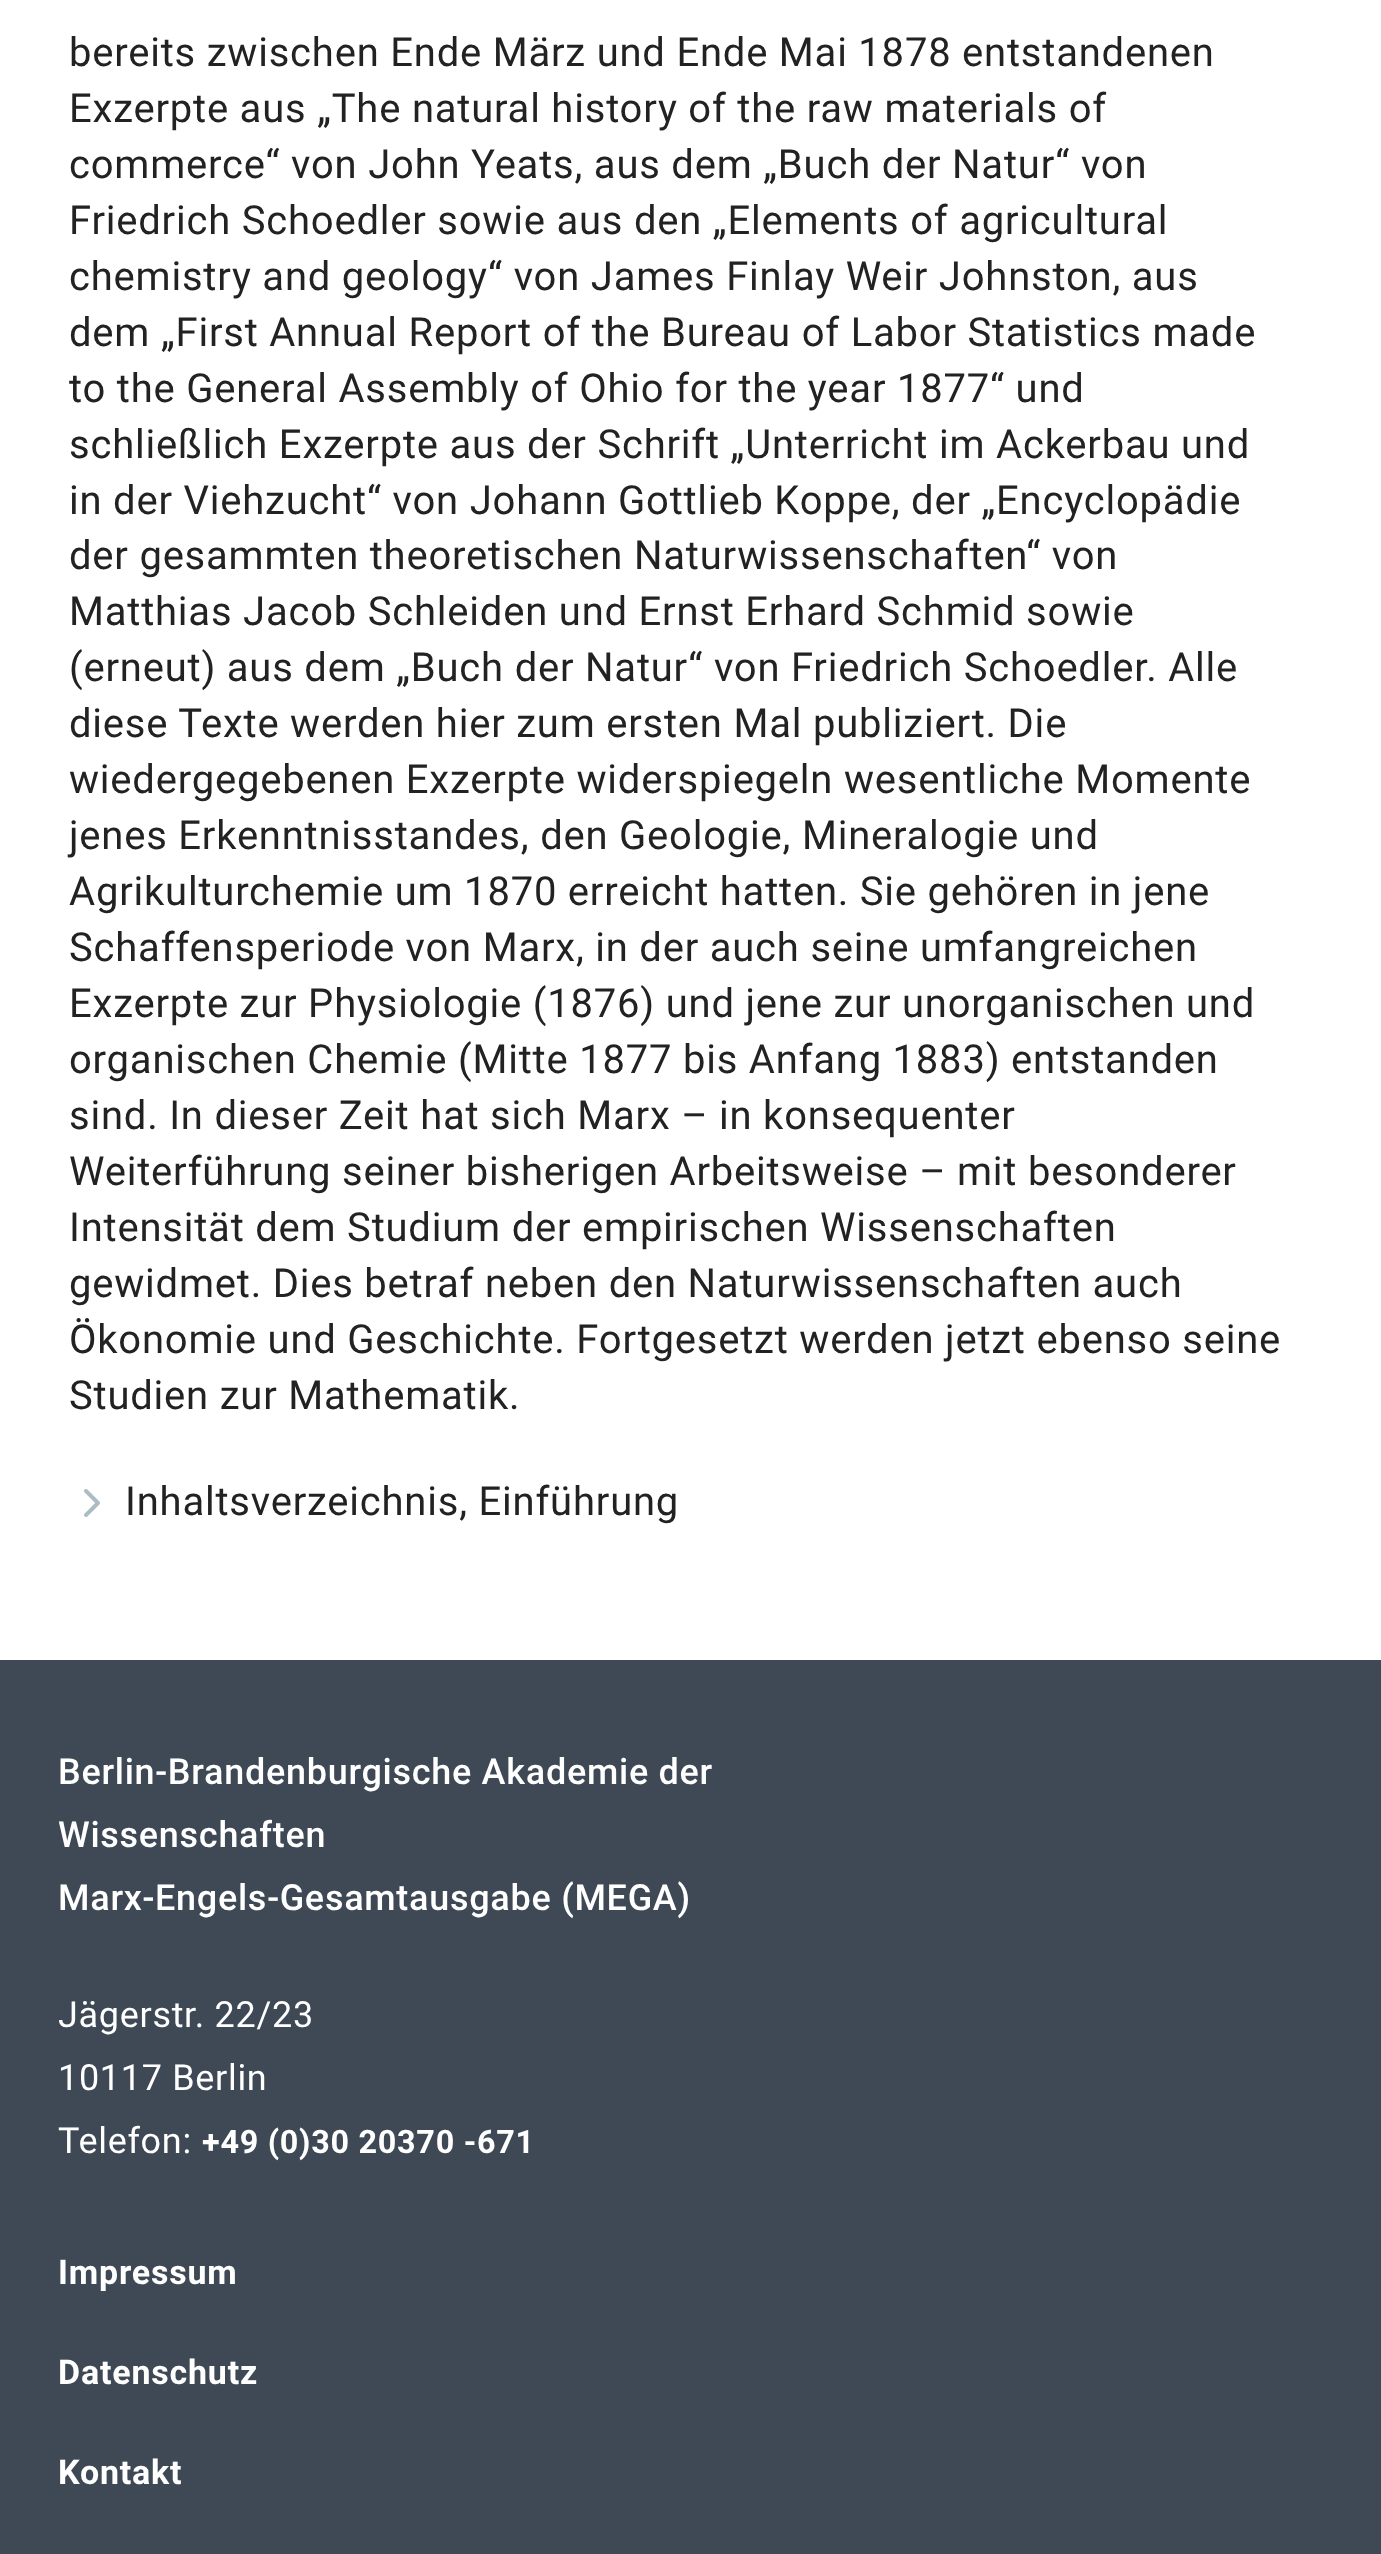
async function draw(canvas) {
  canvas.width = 1381
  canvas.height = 2554
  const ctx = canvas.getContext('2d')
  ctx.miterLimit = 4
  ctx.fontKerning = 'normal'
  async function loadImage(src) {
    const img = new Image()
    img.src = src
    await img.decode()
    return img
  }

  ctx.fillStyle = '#fff'
  ctx.fillRect(0, 0, 1381, 2554)
  ctx.letterSpacing = '0.8px'
  ctx.font = '40px Roboto'
  ctx.fillStyle = '#222'
  ctx.fillText('bereits zwischen Ende März und Ende Mai 1878 entstandenen', 69, 66)
  ctx.fillText('Exzerpte aus „The natural history of the raw materials of', 69, 122)
  ctx.fillText('commerce“ von John Yeats, aus dem „Buch der Natur“ von', 69, 178)
  ctx.fillText('Friedrich Schoedler sowie aus den „Elements of agricultural', 69, 234)
  ctx.fillText('chemistry and geology“ von James Finlay Weir Johnston, aus', 69, 290)
  ctx.fillText('dem „First Annual Report of the Bureau of Labor Statistics made', 69, 346)
  ctx.fillText('to the General Assembly of Ohio for the year 1877“ und', 69, 402)
  ctx.fillText('schließlich Exzerpte aus der Schrift „Unterricht im Ackerbau und', 69, 458)
  ctx.fillText('in der Viehzucht“ von Johann Gottlieb Koppe, der „Encyclopädie', 69, 514)
  ctx.fillText('der gesammten theoretischen Naturwissenschaften“ von', 69, 569)
  ctx.fillText('Matthias Jacob Schleiden und Ernst Erhard Schmid sowie', 69, 625)
  ctx.fillText('(erneut) aus dem „Buch der Natur“ von Friedrich Schoedler. Alle', 69, 681)
  ctx.fillText('diese Texte werden hier zum ersten Mal publiziert. Die', 69, 737)
  ctx.fillText('wiedergegebenen Exzerpte widerspiegeln wesentliche Momente', 69, 793)
  ctx.fillText('jenes Erkenntnisstandes, den Geologie, Mineralogie und', 69, 849)
  ctx.fillText('Agrikulturchemie um 1870 erreicht hatten. Sie gehören in jene', 69, 905)
  ctx.fillText('Schaffensperiode von Marx, in der auch seine umfangreichen', 69, 961)
  ctx.fillText('Exzerpte zur Physiologie (1876) und jene zur unorganischen und', 69, 1017)
  ctx.fillText('organischen Chemie (Mitte 1877 bis Anfang 1883) entstanden', 69, 1073)
  ctx.fillText('sind. In dieser Zeit hat sich Marx – in konsequenter', 69, 1129)
  ctx.fillText('Weiterführung seiner bisherigen Arbeitsweise – mit besonderer', 69, 1185)
  ctx.fillText('Intensität dem Studium der empirischen Wissenschaften', 69, 1241)
  ctx.fillText('gewidmet. Dies betraf neben den Naturwissenschaften auch', 69, 1297)
  ctx.fillText('Ökonomie und Geschichte. Fortgesetzt werden jetzt ebenso seine', 69, 1353)
  ctx.fillText('Studien zur Mathematik.', 69, 1409)
  ctx.drawImage(await loadImage('image0.png'), 84, 1489, 16, 28)
  ctx.fillText('Inhaltsverzeichnis, Einführung', 125, 1515)
  ctx.fillStyle = '#3e4955'
  ctx.fillRect(0, 1660, 1381, 894)
  ctx.letterSpacing = '0.7px'
  ctx.font = '500 36px Roboto'
  ctx.fillStyle = '#fff'
  ctx.fillText('Berlin-Brandenburgische Akademie der', 58, 1784)
  ctx.fillText('Wissenschaften', 58, 1847)
  ctx.fillText('Marx-Engels-Gesamtausgabe (MEGA)', 58, 1910)
  ctx.font = '36px Roboto'
  ctx.fillText('Jägerstr. 22/23', 58, 2027)
  ctx.fillText('10117 Berlin', 58, 2090)
  ctx.fillText('Telefon:', 58, 2153)
  ctx.font = 'bold 32.4px Roboto'
  ctx.fillText('+49 (0)30 20370 -671', 202, 2153)
  ctx.letterSpacing = '0.8px'
  ctx.font = 'bold 34px Roboto'
  ctx.fillText('Impressum', 58, 2284)
  ctx.fillText('Datenschutz', 58, 2384)
  ctx.fillText('Kontakt', 58, 2484)
}

draw(document.querySelector('canvas'))
